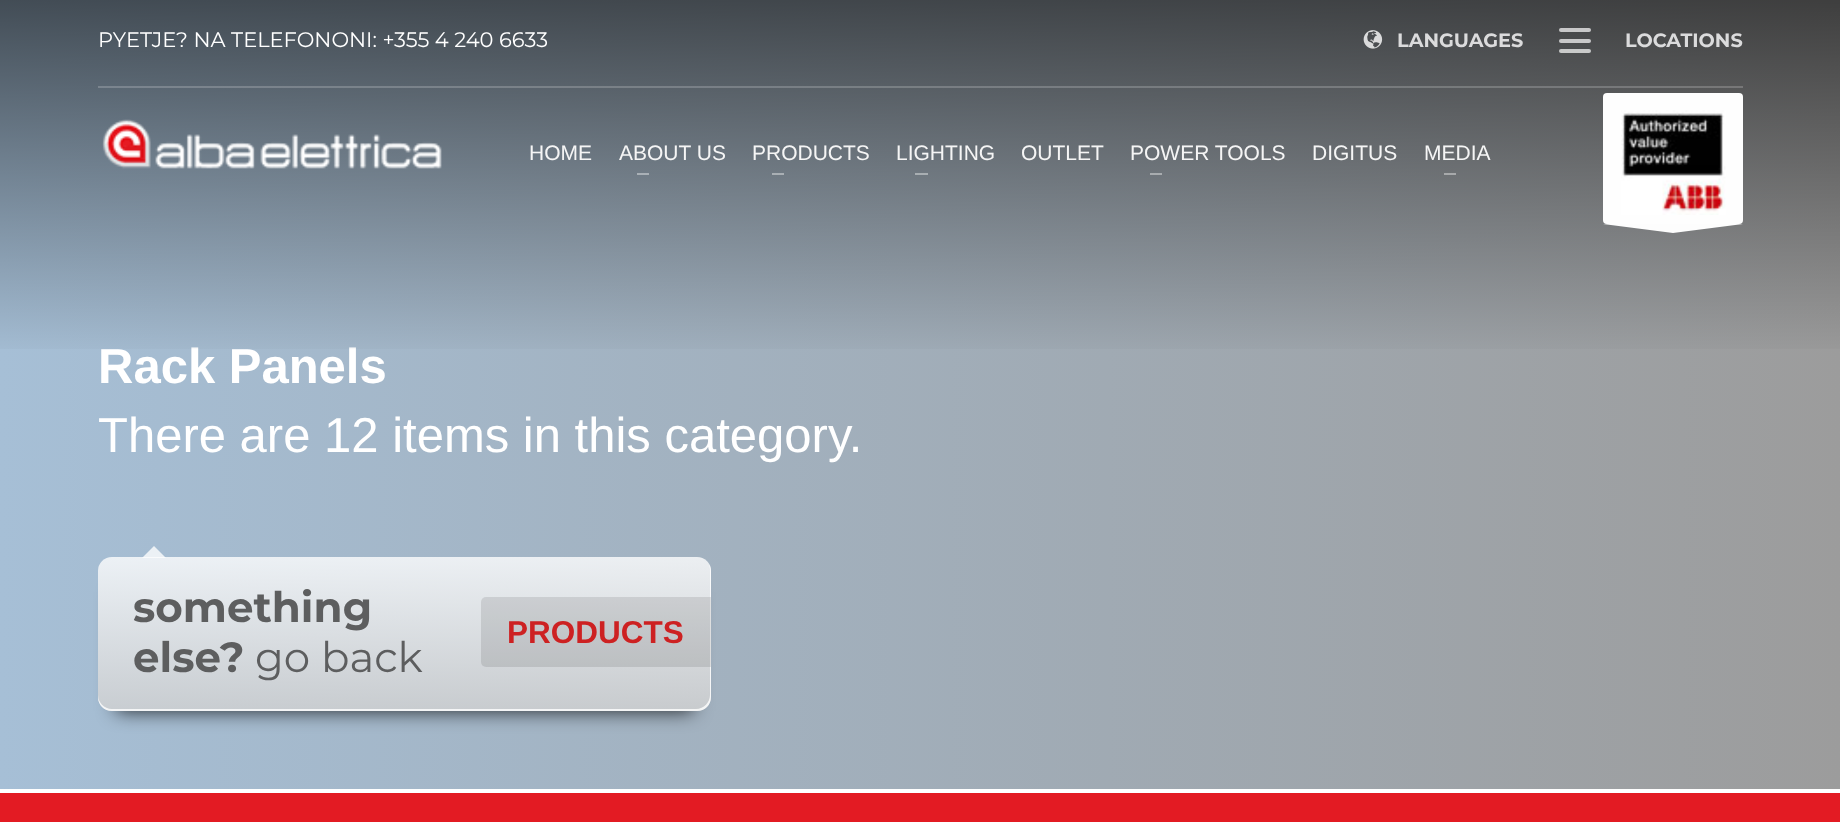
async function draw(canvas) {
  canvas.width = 1840
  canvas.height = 822
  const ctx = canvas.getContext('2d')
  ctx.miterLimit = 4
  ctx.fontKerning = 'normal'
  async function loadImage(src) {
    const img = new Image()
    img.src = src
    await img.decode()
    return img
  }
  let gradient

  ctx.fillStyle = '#fff'
  ctx.fillRect(0, 0, 1840, 822)
  gradient = ctx.createLinearGradient(0, 395, 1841, 395)
  gradient.addColorStop(0, '#a6bfd6')
  gradient.addColorStop(1, '#9c9c9c')
  ctx.fillStyle = gradient
  ctx.fillRect(0, 0, 1840, 789)
  ctx.font = 'bold 49px Liberation Sans'
  ctx.fillStyle = '#fff'
  ctx.fillText('Rack Panels', 98, 383)
  gradient = ctx.createLinearGradient(921, 0, 921, 362)
  gradient.addColorStop(0, '#00000099')
  gradient.addColorStop(1, '#00000000')
  ctx.fillStyle = gradient
  ctx.fillRect(0, 0, 1840, 349)
  ctx.font = '21px Montserrat'
  ctx.fillStyle = '#fff'
  ctx.fillText('PYETJE? NA TELEFONONI: +355 4 240 6633', 98, 47)
  ctx.drawImage(await loadImage('image0.png'), 1363, 30, 20, 19)
  ctx.font = 'bold 19.25px Montserrat'
  ctx.fillStyle = '#dbdbdc'
  ctx.fillText('LANGUAGES', 1397, 47)
  ctx.fillStyle = '#c9caca'
  ctx.beginPath()
  ctx.roundRect(1559, 49, 32, 4, 2)
  ctx.fill()
  ctx.fillStyle = '#c9c9ca'
  ctx.beginPath()
  ctx.roundRect(1559, 39, 32, 4, 2)
  ctx.fill()
  ctx.fillStyle = '#c8c8c9'
  ctx.beginPath()
  ctx.roundRect(1559, 28, 32, 4, 2)
  ctx.fill()
  ctx.fillStyle = '#dbdbdc'
  ctx.fillText('LOCATIONS', 1625, 47)
  ctx.fillStyle = '#ffffff33'
  ctx.fillRect(98, 86, 1645, 2)
  ctx.drawImage(await loadImage('image1.png'), 102, 119, 340, 50)
  ctx.font = '21px Liberation Sans'
  ctx.fillStyle = '#f5f5f5'
  ctx.fillText('HOME', 529, 160)
  ctx.fillText('ABOUT US', 619, 160)
  ctx.fillStyle = '#a9b0b6'
  ctx.fillRect(637, 173, 12, 2)
  ctx.fillStyle = '#f5f5f5'
  ctx.fillText('PRODUCTS', 752, 160)
  ctx.fillStyle = '#a9afb4'
  ctx.fillRect(772, 173, 12, 2)
  ctx.fillStyle = '#f5f5f5'
  ctx.fillText('LIGHTING', 896, 160)
  ctx.fillStyle = '#a8aeb2'
  ctx.fillRect(915, 173, 13, 2)
  ctx.fillStyle = '#f5f5f5'
  ctx.fillText('OUTLET', 1021, 160)
  ctx.fillText('POWER TOOLS', 1130, 160)
  ctx.fillStyle = '#a8acaf'
  ctx.fillRect(1150, 173, 12, 2)
  ctx.fillStyle = '#f5f5f5'
  ctx.fillText('DIGITUS', 1312, 160)
  ctx.fillText('MEDIA', 1424, 160)
  ctx.fillStyle = '#a7a9ab'
  ctx.fillRect(1444, 173, 12, 2)
  ctx.fillStyle = '#fefefe'
  ctx.beginPath()
  ctx.roundRect(1603, 93, 140, 131, 4)
  ctx.fill()
  ctx.drawImage(await loadImage('image2.png'), 1621, 110, 105, 105)
  ctx.fillStyle = '#fdfdfd'
  ctx.beginPath()
  ctx.moveTo(1743, 224)
  ctx.lineTo(1673, 233)
  ctx.lineTo(1603, 224)
  ctx.closePath()
  ctx.fill('evenodd')
  ctx.font = '49px Liberation Sans'
  ctx.fillStyle = '#fff'
  ctx.fillText('There are 12 items in this category.', 98, 452)
  ctx.save()
  ctx.beginPath()
  ctx.moveTo(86, 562)
  ctx.lineTo(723, 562)
  ctx.lineTo(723, 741)
  ctx.lineTo(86, 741)
  ctx.closePath()
  ctx.moveTo(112, 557)
  ctx.lineTo(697, 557)
  ctx.bezierCurveTo(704.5, 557, 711, 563.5, 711, 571)
  ctx.lineTo(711, 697)
  ctx.bezierCurveTo(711, 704.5, 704.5, 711, 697, 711)
  ctx.lineTo(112, 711)
  ctx.bezierCurveTo(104.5, 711, 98, 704.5, 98, 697)
  ctx.lineTo(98, 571)
  ctx.bezierCurveTo(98, 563.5, 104.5, 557, 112, 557)
  ctx.closePath()
  ctx.clip('evenodd')
  ctx.fillStyle = '#000000cc'
  ctx.filter = 'blur(9.5px)'
  ctx.beginPath()
  ctx.rect(116, 592, 577, 119)
  ctx.fill()
  ctx.filter = 'none'
  ctx.restore()
  gradient = ctx.createLinearGradient(404, 557, 404, 711)
  gradient.addColorStop(0, '#fefefecc')
  gradient.addColorStop(1, '#d1d1d1cc')
  ctx.fillStyle = gradient
  ctx.beginPath()
  ctx.roundRect(98, 557, 613, 154, 14)
  ctx.fill()
  ctx.fillStyle = '#ffffffcc'
  ctx.beginPath()
  ctx.moveTo(98, 695)
  ctx.lineTo(98, 697)
  ctx.bezierCurveTo(98, 705, 104, 711, 112, 711)
  ctx.lineTo(697, 711)
  ctx.bezierCurveTo(705, 711, 711, 705, 711, 697)
  ctx.lineTo(711, 571)
  ctx.bezierCurveTo(711, 568, 710, 566, 709, 564)
  ctx.lineTo(710, 569)
  ctx.lineTo(710, 695)
  ctx.bezierCurveTo(710, 702, 704, 709, 696, 709)
  ctx.lineTo(112, 709)
  ctx.bezierCurveTo(104, 709, 98, 702, 98, 695)
  ctx.closePath()
  ctx.fill()
  ctx.fillStyle = '#fefefecc'
  ctx.beginPath()
  ctx.moveTo(166, 558)
  ctx.lineTo(142, 558)
  ctx.lineTo(154, 546)
  ctx.closePath()
  ctx.fill()
  ctx.font = 'bold 42px Montserrat'
  ctx.fillStyle = '#5d5e5f'
  ctx.fillText('something', 133, 622)
  ctx.fillText('else?', 133, 672)
  ctx.font = '42px Montserrat'
  ctx.fillText('go back', 255, 672)
  ctx.fillStyle = '#0000001a'
  ctx.beginPath()
  ctx.roundRect(481, 597, 230, 70, [5, 0, 0, 5])
  ctx.fill()
  ctx.font = 'bold 31.5px Liberation Sans'
  ctx.fillStyle = '#cd2122'
  ctx.fillText('PRODUCTS', 507, 643)
  ctx.fillStyle = '#e31b23'
  ctx.fillRect(0, 793, 1840, 29)
}

draw(document.querySelector('canvas'))
